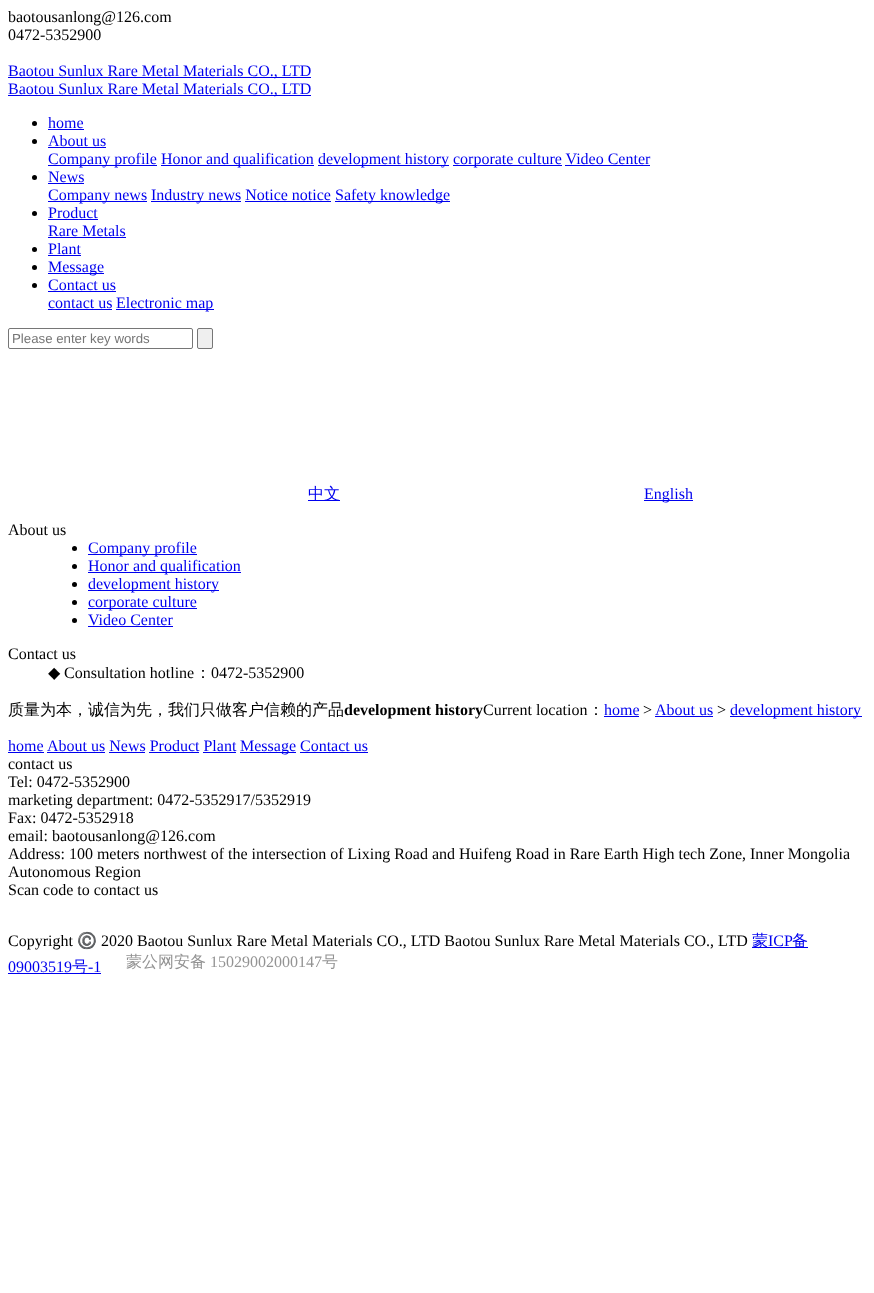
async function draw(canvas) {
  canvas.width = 874
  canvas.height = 1293
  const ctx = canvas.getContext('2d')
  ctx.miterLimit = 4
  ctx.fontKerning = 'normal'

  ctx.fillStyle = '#fff'
  ctx.fillRect(0, 0, 874, 1293)
  ctx.font = '16px Liberation Serif'
  ctx.fillStyle = '#000'
  ctx.fillText('baotousanlong@126.com', 8, 22)
  ctx.fillText('0472-5352900', 8, 40)
  ctx.fillStyle = '#00e'
  ctx.fillRect(8, 77, 303, 1)
  ctx.fillText('Baotou Sunlux Rare Metal Materials CO., LTD', 8, 76)
  ctx.fillRect(8, 95, 303, 1)
  ctx.fillText('Baotou Sunlux Rare Metal Materials CO., LTD', 8, 94)
  ctx.fillStyle = '#000'
  ctx.beginPath()
  ctx.arc(34.5, 123.5, 2.5, 0, 2 * Math.PI)
  ctx.fill()
  ctx.fillStyle = '#00e'
  ctx.fillText('home', 48, 128)
  ctx.fillRect(48, 129, 36, 1)
  ctx.fillStyle = '#000'
  ctx.beginPath()
  ctx.arc(34.5, 141.5, 2.5, 0, 2 * Math.PI)
  ctx.fill()
  ctx.fillStyle = '#00e'
  ctx.fillText('About us', 48, 146)
  ctx.fillRect(48, 147, 58, 1)
  ctx.fillRect(48, 165, 109, 1)
  ctx.fillText('Company profile', 48, 164)
  ctx.fillRect(161, 165, 153, 1)
  ctx.fillText('Honor and qualification', 161, 164)
  ctx.fillRect(318, 165, 131, 1)
  ctx.fillText('development history', 318, 164)
  ctx.fillRect(453, 165, 109, 1)
  ctx.fillText('corporate culture Video Center', 453, 164)
  ctx.fillRect(565, 165, 85, 1)
  ctx.fillStyle = '#000'
  ctx.beginPath()
  ctx.arc(34.5, 177.5, 2.5, 0, 2 * Math.PI)
  ctx.fill()
  ctx.fillStyle = '#00e'
  ctx.fillText('News', 48, 182)
  ctx.fillRect(48, 183, 36, 1)
  ctx.fillRect(48, 201, 99, 1)
  ctx.fillText('Company news', 48, 200)
  ctx.fillRect(151, 201, 90, 1)
  ctx.fillText('Industry news Notice notice', 151, 200)
  ctx.fillRect(335, 201, 115, 1)
  ctx.fillText('Safety knowledge', 335, 200)
  ctx.fillRect(245, 201, 86, 1)
  ctx.fillStyle = '#000'
  ctx.beginPath()
  ctx.arc(34.5, 213.5, 2.5, 0, 2 * Math.PI)
  ctx.fill()
  ctx.fillStyle = '#00e'
  ctx.fillText('Product', 48, 218)
  ctx.fillRect(48, 219, 50, 1)
  ctx.fillText('Rare Metals', 48, 236)
  ctx.fillRect(48, 237, 78, 1)
  ctx.fillStyle = '#000'
  ctx.beginPath()
  ctx.arc(34.5, 249.5, 2.5, 0, 2 * Math.PI)
  ctx.fill()
  ctx.fillStyle = '#00e'
  ctx.fillText('Plant', 48, 254)
  ctx.fillRect(48, 255, 33, 1)
  ctx.fillStyle = '#000'
  ctx.beginPath()
  ctx.arc(34.5, 267.5, 2.5, 0, 2 * Math.PI)
  ctx.fill()
  ctx.fillStyle = '#00e'
  ctx.fillRect(48, 273, 56, 1)
  ctx.fillText('Message', 48, 272)
  ctx.fillStyle = '#000'
  ctx.beginPath()
  ctx.arc(34.5, 285.5, 2.5, 0, 2 * Math.PI)
  ctx.fill()
  ctx.fillStyle = '#00e'
  ctx.fillText('Contact us', 48, 290)
  ctx.fillRect(48, 291, 68, 1)
  ctx.fillText('contact us', 48, 308)
  ctx.fillRect(48, 309, 64, 1)
  ctx.fillRect(116, 309, 98, 1)
  ctx.fillText('Electronic map', 116, 308)
  ctx.beginPath()
  ctx.roundRect(8.5, 328.5, 184, 20, 1.5)
  ctx.strokeStyle = '#767676'
  ctx.stroke()
  ctx.font = '13.25px Liberation Sans'
  ctx.fillStyle = '#757575'
  ctx.fillText('Please enter key words', 12, 343)
  ctx.fillStyle = '#efefef'
  ctx.beginPath()
  ctx.roundRect(197.5, 328.5, 15, 20, 1.5)
  ctx.fill()
  ctx.stroke()
  ctx.fillStyle = '#00e'
  ctx.fillRect(308, 500, 32, 1)
  ctx.font = '500 16px WenQuanYi Zen Hei'
  ctx.fillText('中文', 308, 499)
  ctx.fillRect(644, 500, 49, 1)
  ctx.font = '16px Liberation Serif'
  ctx.fillText('English', 644, 499)
  ctx.fillStyle = '#000'
  ctx.fillText('About us', 8, 535)
  ctx.beginPath()
  ctx.arc(74.5, 548.5, 2.5, 0, 2 * Math.PI)
  ctx.fill()
  ctx.fillStyle = '#00e'
  ctx.fillRect(88, 554, 109, 1)
  ctx.fillText('Company profile', 88, 553)
  ctx.fillStyle = '#000'
  ctx.beginPath()
  ctx.arc(74.5, 566.5, 2.5, 0, 2 * Math.PI)
  ctx.fill()
  ctx.fillStyle = '#00e'
  ctx.fillRect(88, 572, 153, 1)
  ctx.fillText('Honor and qualification', 88, 571)
  ctx.fillStyle = '#000'
  ctx.beginPath()
  ctx.arc(74.5, 584.5, 2.5, 0, 2 * Math.PI)
  ctx.fill()
  ctx.fillStyle = '#00e'
  ctx.fillRect(88, 590, 131, 1)
  ctx.fillText('development history', 88, 589)
  ctx.fillStyle = '#000'
  ctx.beginPath()
  ctx.arc(74.5, 602.5, 2.5, 0, 2 * Math.PI)
  ctx.fill()
  ctx.fillStyle = '#00e'
  ctx.fillRect(88, 608, 109, 1)
  ctx.fillText('corporate culture', 88, 607)
  ctx.fillStyle = '#000'
  ctx.beginPath()
  ctx.arc(74.5, 620.5, 2.5, 0, 2 * Math.PI)
  ctx.fill()
  ctx.fillStyle = '#00e'
  ctx.fillText('Video Center', 88, 625)
  ctx.fillRect(88, 626, 85, 1)
  ctx.fillStyle = '#000'
  ctx.fillText('Contact us', 8, 659)
  ctx.font = '16px DejaVu Sans'
  ctx.fillText('◆', 48, 678)
  ctx.font = '16px Liberation Serif'
  ctx.fillText('Consultation hotline', 64, 678)
  ctx.font = '500 16px WenQuanYi Zen Hei'
  ctx.fillText('：', 195, 678)
  ctx.font = '16px Liberation Serif'
  ctx.fillText('0472-5352900', 211, 678)
  ctx.font = '500 16px WenQuanYi Zen Hei'
  ctx.fillText('质量为本，诚信为先，我们只做客户信赖的产品', 8, 715)
  ctx.font = 'bold 16px Liberation Serif'
  ctx.fillText('development history', 344, 715)
  ctx.font = '16px Liberation Serif'
  ctx.fillText('Current location', 483, 715)
  ctx.font = '500 16px WenQuanYi Zen Hei'
  ctx.fillText('：', 588, 715)
  ctx.font = '16px Liberation Serif'
  ctx.fillStyle = '#00e'
  ctx.fillText('home', 604, 715)
  ctx.fillRect(604, 716, 35, 1)
  ctx.fillStyle = '#000'
  ctx.fillText('>', 643, 715)
  ctx.fillStyle = '#00e'
  ctx.fillText('About us', 655, 715)
  ctx.fillRect(655, 716, 58, 1)
  ctx.fillStyle = '#000'
  ctx.fillText('>', 717, 715)
  ctx.fillStyle = '#00e'
  ctx.fillRect(730, 716, 132, 1)
  ctx.fillText('development history', 730, 715)
  ctx.fillText('home', 8, 751)
  ctx.fillRect(8, 752, 36, 1)
  ctx.fillText('About us News Product Plant', 47, 751)
  ctx.fillRect(47, 752, 58, 1)
  ctx.fillRect(240, 752, 56, 1)
  ctx.fillText('Message Contact us', 240, 751)
  ctx.fillRect(109, 752, 36, 1)
  ctx.fillRect(149, 752, 50, 1)
  ctx.fillRect(203, 752, 33, 1)
  ctx.fillRect(300, 752, 68, 1)
  ctx.fillStyle = '#000'
  ctx.fillText('contact us', 8, 769)
  ctx.fillText('Tel: 0472-5352900', 8, 787)
  ctx.fillText('marketing department: 0472-5352917/5352919', 8, 805)
  ctx.fillText('Fax: 0472-5352918', 8, 823)
  ctx.fillText('email: baotousanlong@126.com', 8, 841)
  ctx.fillText('Address: 100 meters northwest of the intersection of Lixing Road and Huifeng Road in Rare Earth High tech Zone, Inner Mongolia', 8, 859)
  ctx.fillText('Autonomous Region', 8, 877)
  ctx.fillText('Scan code to contact us', 8, 895)
  ctx.fillText('Copyright', 8, 946)
  ctx.font = '16px Noto Color Emoji'
  ctx.fillText('©️', 77, 946)
  ctx.font = '16px Liberation Serif'
  ctx.fillText('2020 Baotou Sunlux Rare Metal Materials CO., LTD Baotou Sunlux Rare Metal Materials CO., LTD', 101, 946)
  ctx.fillStyle = '#00e'
  ctx.fillRect(752, 947, 56, 1)
  ctx.font = '500 16px WenQuanYi Zen Hei'
  ctx.fillText('蒙', 752, 946)
  ctx.font = '16px Liberation Serif'
  ctx.fillText('ICP', 768, 946)
  ctx.font = '500 16px WenQuanYi Zen Hei'
  ctx.fillText('备', 792, 946)
  ctx.font = '16px Liberation Serif'
  ctx.fillText('09003519', 8, 972)
  ctx.fillRect(8, 973, 93, 1)
  ctx.font = '500 16px WenQuanYi Zen Hei'
  ctx.fillText('号', 72, 972)
  ctx.font = '16px Liberation Serif'
  ctx.fillText('-1', 88, 972)
  ctx.font = '500 16px WenQuanYi Zen Hei'
  ctx.fillStyle = '#939393'
  ctx.fillText('蒙公网安备', 126, 967)
  ctx.font = '16px Liberation Serif'
  ctx.fillText('15029002000147', 210, 967)
  ctx.font = '500 16px WenQuanYi Zen Hei'
  ctx.fillText('号', 322, 967)
}

draw(document.querySelector('canvas'))
